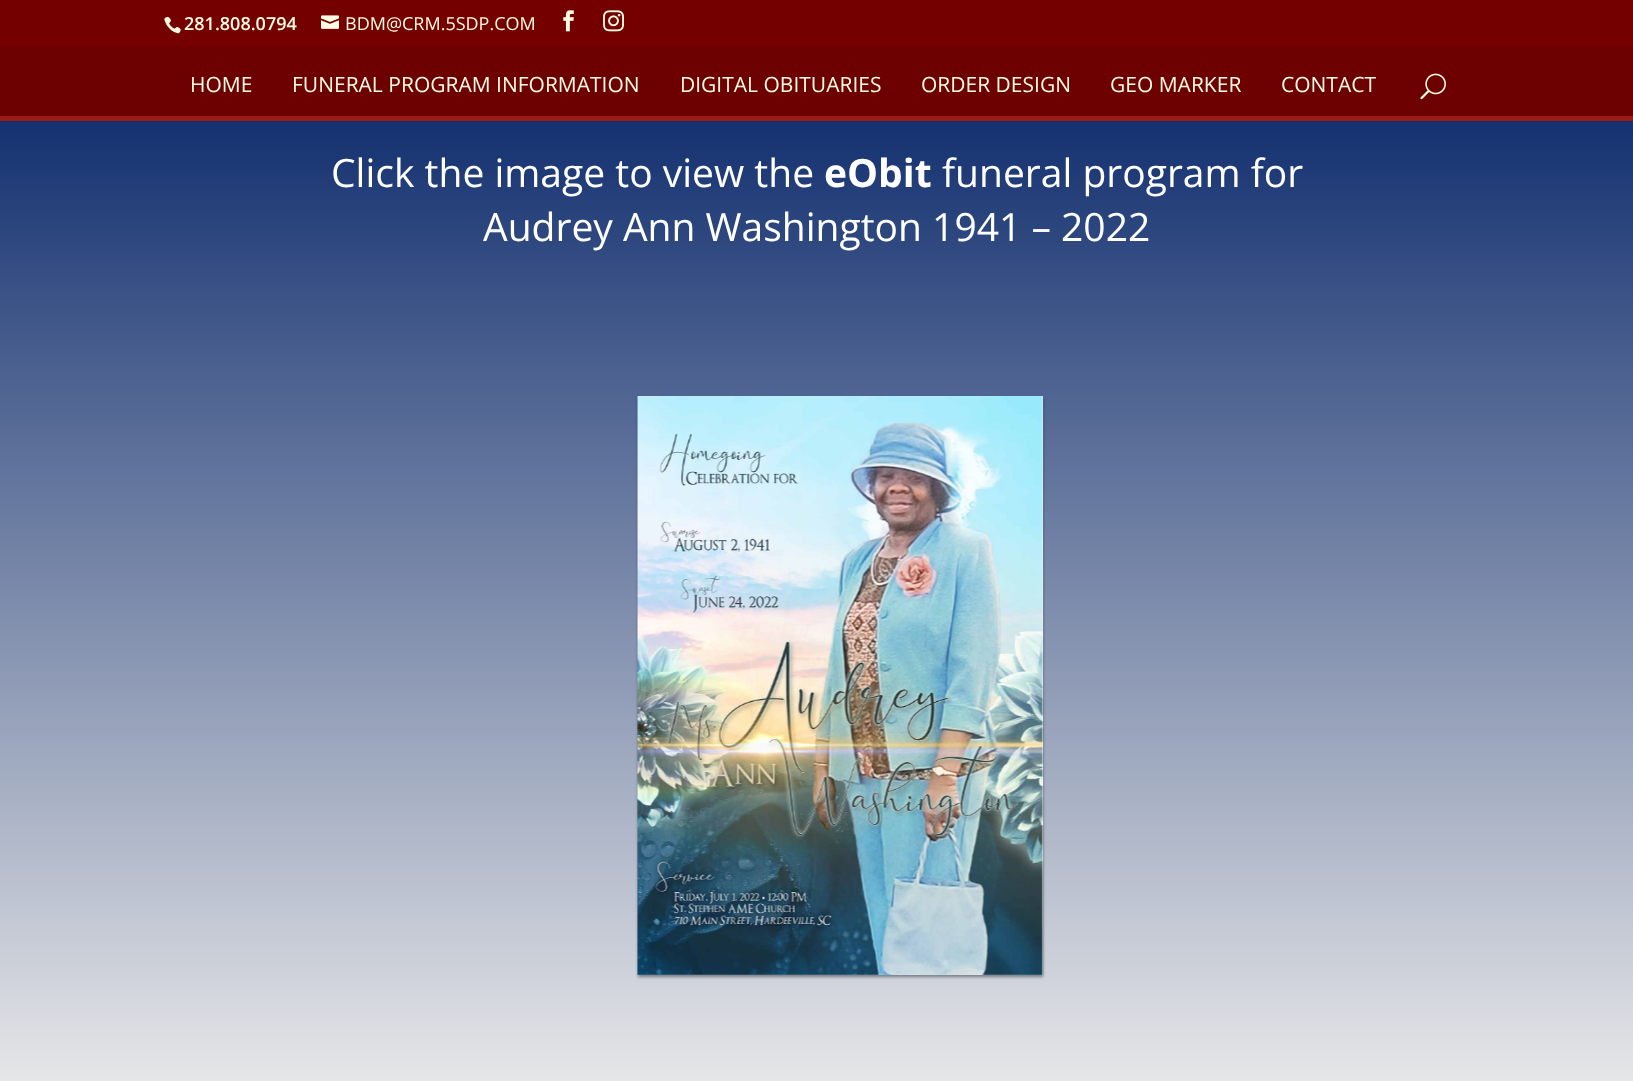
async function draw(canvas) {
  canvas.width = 1633
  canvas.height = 1081
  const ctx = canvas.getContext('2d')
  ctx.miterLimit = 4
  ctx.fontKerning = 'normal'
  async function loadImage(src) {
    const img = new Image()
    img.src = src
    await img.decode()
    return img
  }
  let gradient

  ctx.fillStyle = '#750000'
  ctx.fillRect(0, 0, 1633, 1081)
  ctx.drawImage(await loadImage('image0.png'), 164, 16, 17, 18)
  ctx.font = '600 18px Open Sans'
  ctx.fillStyle = '#fcfbe3'
  ctx.fillText('281.808.0794', 184, 30)
  ctx.drawImage(await loadImage('image1.png'), 321, 15, 18, 14)
  ctx.font = '18px Open Sans'
  ctx.fillText('BDM@CRM.5SDP.COM', 345, 30)
  ctx.drawImage(await loadImage('image2.png'), 563, 10, 11, 22)
  ctx.drawImage(await loadImage('image3.png'), 603, 10, 21, 22)
  ctx.fillStyle = '#122c65'
  ctx.beginPath()
  ctx.moveTo(0, 120)
  ctx.lineTo(0, 122)
  ctx.lineTo(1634, 122)
  ctx.lineTo(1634, 48)
  ctx.lineTo(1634, 120)
  ctx.closePath()
  ctx.fill()
  ctx.fillStyle = '#6d0000'
  ctx.fillRect(0, 47, 1633, 69)
  ctx.fillStyle = '#9c1b16'
  ctx.fillRect(0, 116, 1633, 5)
  ctx.font = '21px Open Sans'
  ctx.fillStyle = '#fcfbe3'
  ctx.fillText('HOME', 190, 92)
  ctx.fillText('FUNERAL PROGRAM INFORMATION', 292, 92)
  ctx.fillText('DIGITAL OBITUARIES', 680, 92)
  ctx.fillText('ORDER DESIGN', 921, 92)
  ctx.fillText('GEO MARKER', 1110, 92)
  ctx.fillText('CONTACT', 1281, 92)
  ctx.drawImage(await loadImage('image4.png'), 1420, 73, 26, 27)
  gradient = ctx.createLinearGradient(817, 120, 817, 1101)
  gradient.addColorStop(0, '#143170')
  gradient.addColorStop(1, '#eaeaea')
  ctx.fillStyle = gradient
  ctx.fillRect(0, 122, 1633, 959)
  ctx.font = '39px Open Sans'
  ctx.fillStyle = '#fff'
  ctx.fillText('Click the image to view the', 331, 187)
  ctx.font = 'bold 39px Open Sans'
  ctx.fillText('eObit', 824, 187)
  ctx.font = '39px Open Sans'
  ctx.fillText('funeral program for', 942, 187)
  ctx.fillText('Audrey Ann Washington 1941 – 2022', 483, 241)
  ctx.fillStyle = '#00000038'
  ctx.filter = 'blur(1.5px)'
  ctx.beginPath()
  ctx.rect(638, 398, 405, 579)
  ctx.fill()
  ctx.filter = 'none'
  ctx.filter = 'blur(1.5px)'
  ctx.beginPath()
  ctx.rect(638, 398, 405, 579)
  ctx.fill()
  ctx.filter = 'none'
  ctx.fillStyle = '#eee'
  ctx.fillRect(638, 396, 405, 579)
  ctx.drawImage(await loadImage('image5.png'), 637, 396, 407, 579)
}

draw(document.querySelector('canvas'))
